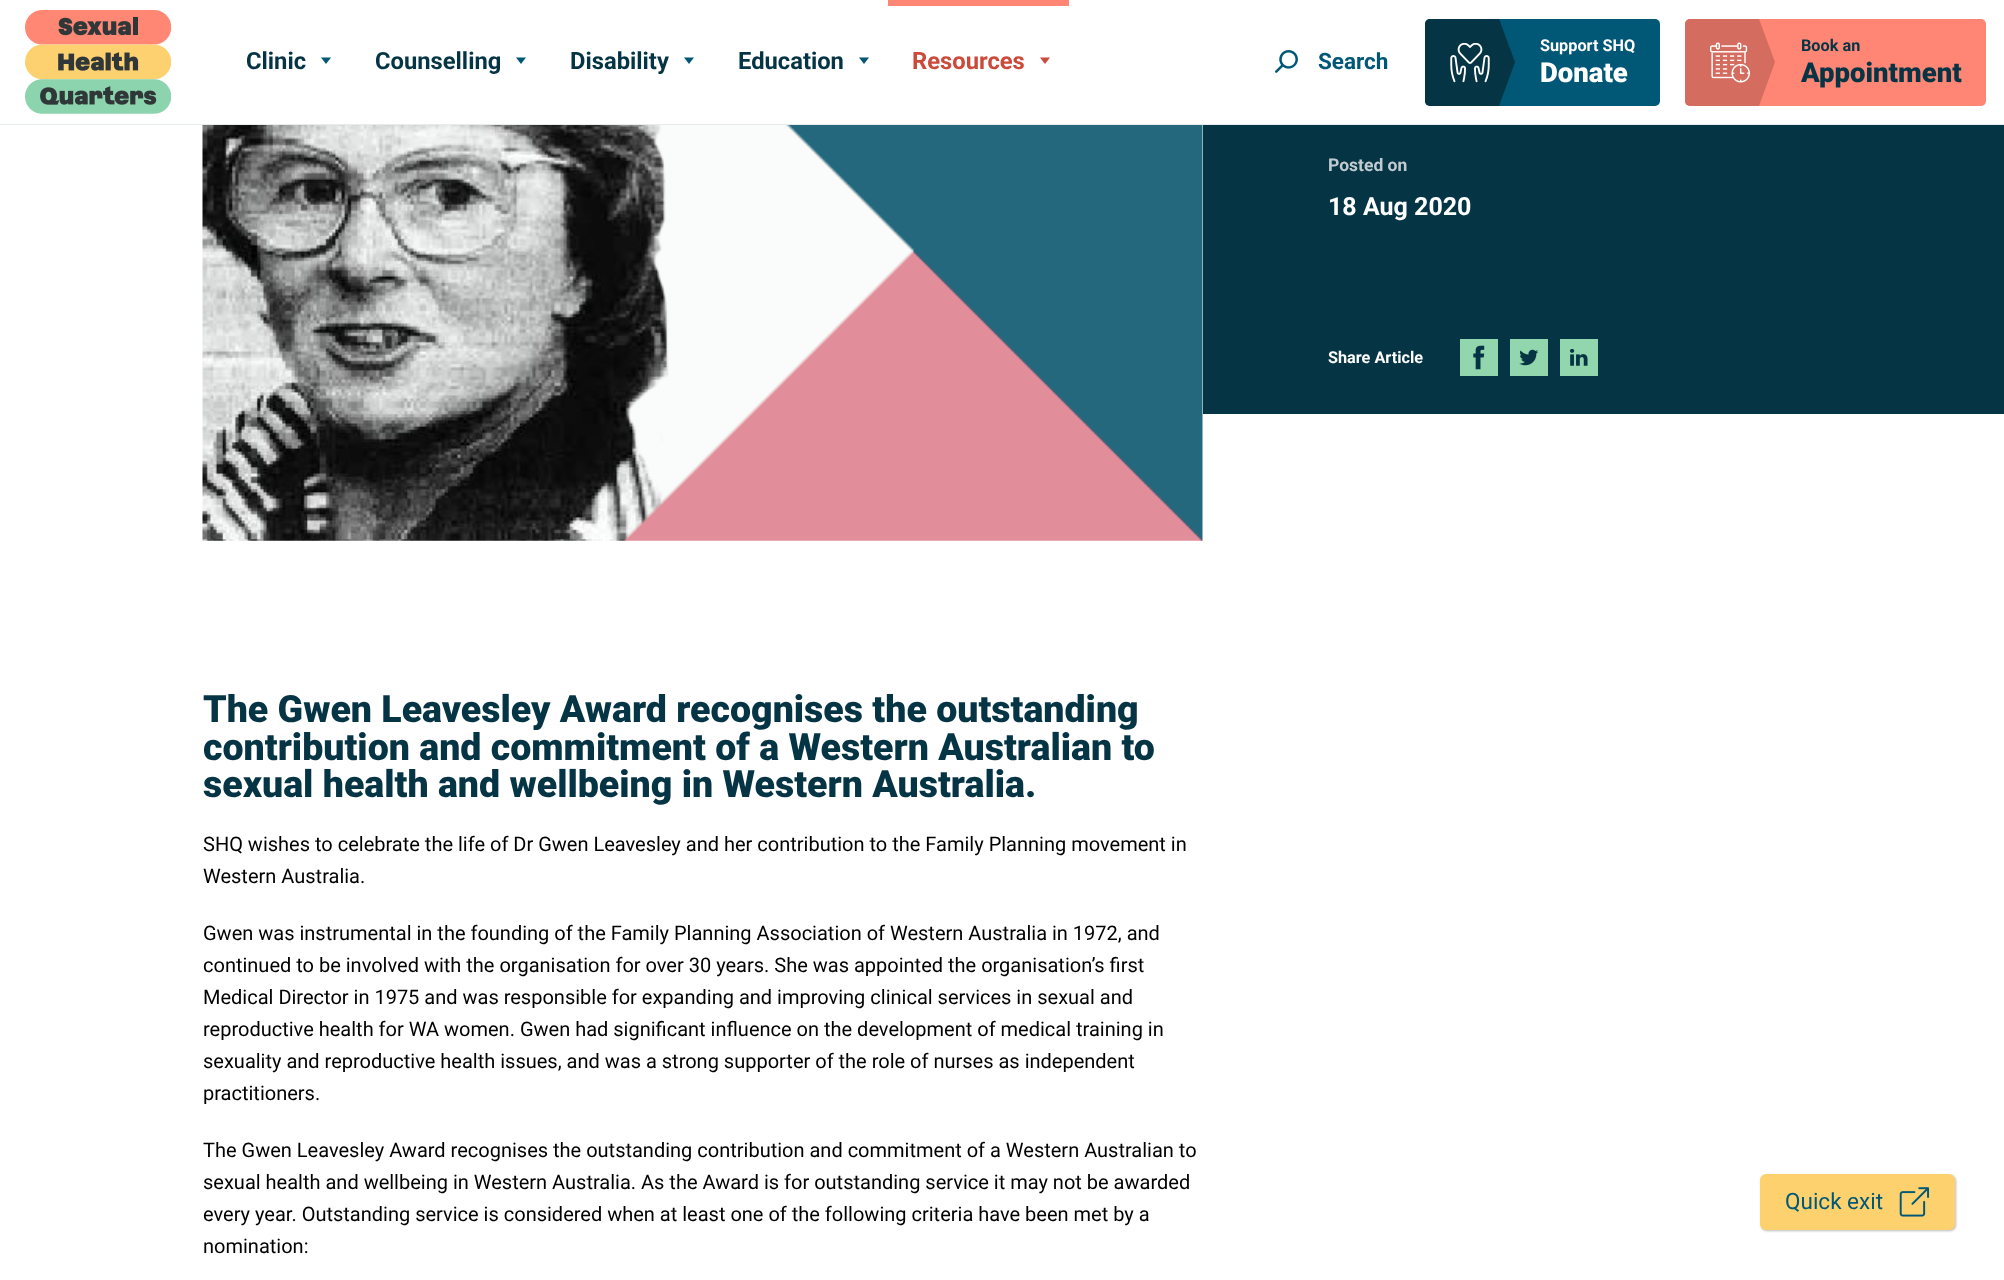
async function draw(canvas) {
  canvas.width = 2004
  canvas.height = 1280
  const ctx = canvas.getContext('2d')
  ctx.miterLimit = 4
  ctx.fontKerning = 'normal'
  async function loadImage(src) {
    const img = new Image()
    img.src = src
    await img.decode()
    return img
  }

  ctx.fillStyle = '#fff'
  ctx.fillRect(0, 0, 2004, 1280)
  ctx.fillStyle = '#e6ebec'
  ctx.fillRect(0, 124, 2004, 1)
  ctx.drawImage(await loadImage('image0.png'), 25, 10, 146, 104)
  ctx.font = 'bold 23.75px Roboto'
  ctx.fillStyle = '#053445'
  ctx.fillText('Clinic', 246, 69)
  ctx.fillStyle = '#005776'
  ctx.beginPath()
  ctx.moveTo(321, 57.5)
  ctx.lineTo(331, 57.5)
  ctx.lineTo(326, 64)
  ctx.closePath()
  ctx.fill()
  ctx.fillStyle = '#053445'
  ctx.fillText('Counselling', 375, 69)
  ctx.fillStyle = '#005776'
  ctx.beginPath()
  ctx.moveTo(516, 57.5)
  ctx.lineTo(526, 57.5)
  ctx.lineTo(521, 64)
  ctx.closePath()
  ctx.fill()
  ctx.fillStyle = '#053445'
  ctx.fillText('Disability', 570, 69)
  ctx.fillStyle = '#005776'
  ctx.beginPath()
  ctx.moveTo(684, 57.5)
  ctx.lineTo(694, 57.5)
  ctx.lineTo(689, 64)
  ctx.closePath()
  ctx.fill()
  ctx.fillStyle = '#053445'
  ctx.fillText('Education', 738, 69)
  ctx.fillStyle = '#005776'
  ctx.beginPath()
  ctx.moveTo(859, 57.5)
  ctx.lineTo(869, 57.5)
  ctx.lineTo(864, 64)
  ctx.closePath()
  ctx.fill()
  ctx.fillStyle = '#ff8674'
  ctx.fillRect(888, 0, 181, 6)
  ctx.fillStyle = '#cb4a3a'
  ctx.fillText('Resources', 912, 69)
  ctx.beginPath()
  ctx.moveTo(1040, 57.5)
  ctx.lineTo(1050, 57.5)
  ctx.lineTo(1045, 64)
  ctx.closePath()
  ctx.fill()
  ctx.drawImage(await loadImage('image1.png'), 1275, 50, 23, 23)
  ctx.font = 'bold 22.5px Roboto'
  ctx.fillStyle = '#005776'
  ctx.fillText('Search', 1318, 69)
  ctx.beginPath()
  ctx.roundRect(1425, 19, 235, 87, 5)
  ctx.fill()
  ctx.fillStyle = '#053445'
  ctx.beginPath()
  ctx.roundRect(1425, 19, 74, 87, [5, 0, 0, 5])
  ctx.fill()
  ctx.beginPath()
  ctx.moveTo(1499, 106)
  ctx.lineTo(1499, 19)
  ctx.lineTo(1515, 62)
  ctx.closePath()
  ctx.fill()
  ctx.drawImage(await loadImage('image2.png'), 1450, 43, 40, 40)
  ctx.font = 'bold 16.25px Roboto'
  ctx.fillStyle = '#fff'
  ctx.fillText('Support SHQ', 1540, 51)
  ctx.font = '900 27.5px Roboto'
  ctx.fillText('Donate', 1540, 82)
  ctx.fillStyle = '#ff8674'
  ctx.beginPath()
  ctx.roundRect(1685, 19, 301, 87, 5)
  ctx.fill()
  ctx.fillStyle = '#d46d5f'
  ctx.beginPath()
  ctx.roundRect(1685, 19, 74, 87, [5, 0, 0, 5])
  ctx.fill()
  ctx.beginPath()
  ctx.moveTo(1759, 106)
  ctx.lineTo(1759, 19)
  ctx.lineTo(1775, 62)
  ctx.closePath()
  ctx.fill()
  ctx.drawImage(await loadImage('image3.png'), 1710, 42, 40, 41)
  ctx.font = 'bold 16.25px Roboto'
  ctx.fillStyle = '#053445'
  ctx.fillText('Book an', 1801, 51)
  ctx.font = '900 27.5px Roboto'
  ctx.fillText('Appointment', 1801, 82)
  ctx.drawImage(await loadImage('image4.png'), 202, 125, 1001, 416)
  ctx.fillRect(1203, 125, 801, 289)
  ctx.font = 'bold 17.5px Roboto'
  ctx.fillStyle = '#c1ccd1'
  ctx.fillText('Posted on', 1328, 171)
  ctx.font = 'bold 25px Roboto'
  ctx.fillStyle = '#fff'
  ctx.fillText('18 Aug 2020', 1328, 215)
  ctx.font = 'bold 16.25px Roboto'
  ctx.fillText('Share Article', 1328, 363)
  ctx.fillStyle = '#91d6ac'
  ctx.fillRect(1460, 339, 38, 37)
  ctx.drawImage(await loadImage('image5.png'), 1473, 345, 12, 25)
  ctx.fillRect(1510, 339, 38, 37)
  ctx.drawImage(await loadImage('image6.png'), 1519, 349, 20, 17)
  ctx.fillRect(1560, 339, 38, 37)
  ctx.drawImage(await loadImage('image7.png'), 1570, 349, 18, 17)
  ctx.font = '900 37.5px Roboto'
  ctx.fillStyle = '#053445'
  ctx.fillText('The Gwen Leavesley Award recognises the outstanding', 203, 722)
  ctx.fillText('contribution and commitment of a Western Australian to', 203, 760)
  ctx.fillText('sexual health and wellbeing in Western Australia.', 203, 797)
  ctx.font = '20px Roboto'
  ctx.fillStyle = '#000'
  ctx.fillText('SHQ wishes to celebrate the life of Dr Gwen Leavesley and her contribution to the Family Planning movement in', 203, 851)
  ctx.fillText('Western Australia.', 203, 883)
  ctx.fillText('Gwen was instrumental in the founding of the Family Planning Association of Western Australia in 1972, and', 203, 940)
  ctx.fillText('continued to be involved with the organisation for over 30 years. She was appointed the organisation’s first', 203, 972)
  ctx.fillText('Medical Director in 1975 and was responsible for expanding and improving clinical services in sexual and', 203, 1004)
  ctx.fillText('reproductive health for WA women. Gwen had significant influence on the development of medical training in', 203, 1036)
  ctx.fillText('sexuality and reproductive health issues, and was a strong supporter of the role of nurses as independent', 203, 1068)
  ctx.fillText('practitioners.', 203, 1100)
  ctx.fillText('The Gwen Leavesley Award recognises the outstanding contribution and commitment of a Western Australian to', 203, 1157)
  ctx.fillText('sexual health and wellbeing in Western Australia. As the Award is for outstanding service it may not be awarded', 203, 1189)
  ctx.fillText('every year. Outstanding service is considered when at least one of the following criteria have been met by a', 203, 1221)
  ctx.fillText('nomination:', 203, 1253)
  ctx.fillStyle = '#00000045'
  ctx.filter = 'blur(1px)'
  ctx.beginPath()
  ctx.roundRect(1761, 1175, 195, 56, 6)
  ctx.fill()
  ctx.filter = 'none'
  ctx.fillStyle = '#fdd26e'
  ctx.beginPath()
  ctx.roundRect(1760, 1174, 195, 56, 6)
  ctx.fill()
  ctx.font = '22.5px Roboto'
  ctx.fillStyle = '#005776'
  ctx.fillText('Quick exit', 1785, 1209)
  ctx.drawImage(await loadImage('image8.png'), 1899, 1187, 31, 30)
}

draw(document.querySelector('canvas'))
